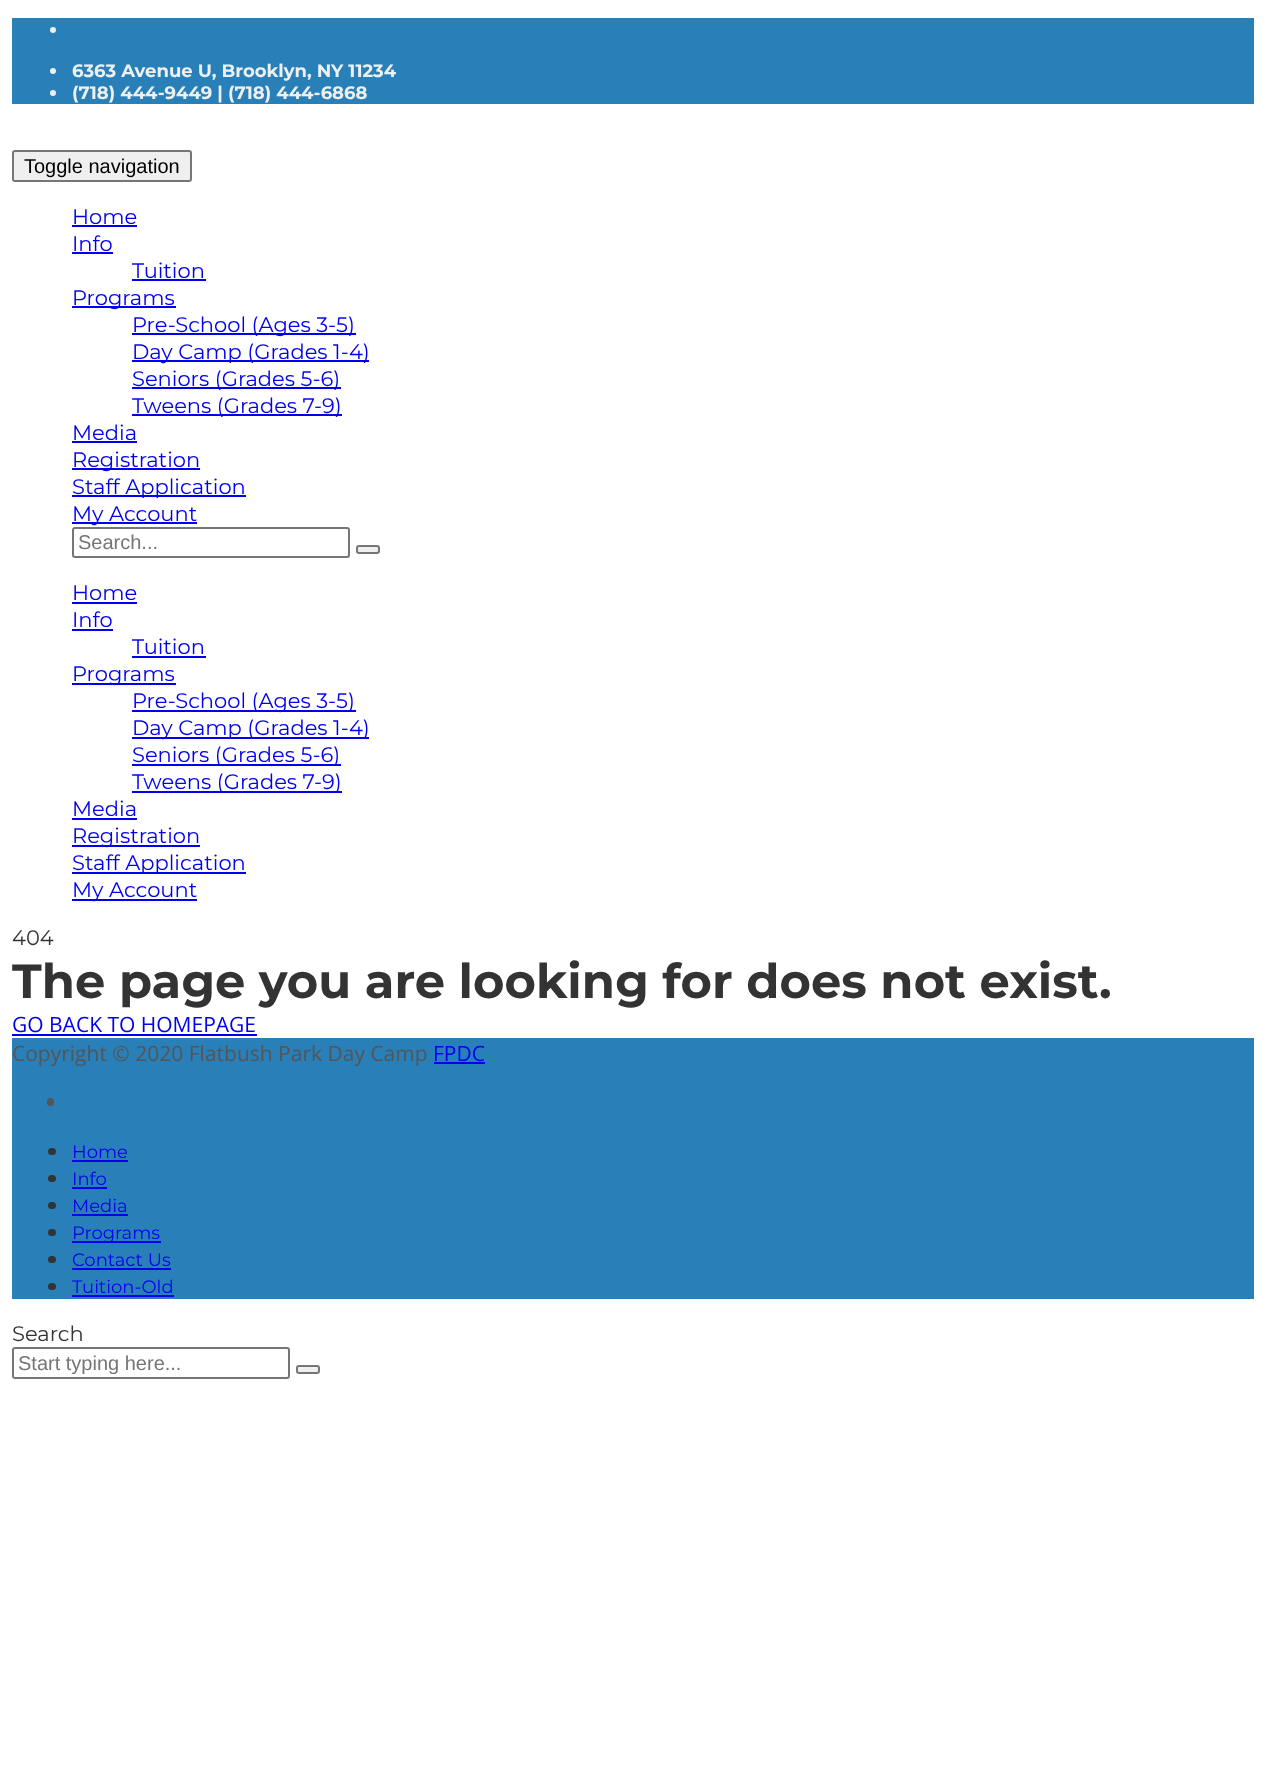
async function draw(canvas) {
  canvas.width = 1266
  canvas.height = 1786
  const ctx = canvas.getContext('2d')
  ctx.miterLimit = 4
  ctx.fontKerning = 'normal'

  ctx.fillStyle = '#fff'
  ctx.fillRect(0, 0, 1266, 1786)
  ctx.fillStyle = '#2980b9'
  ctx.fillRect(12, 18, 1242, 86)
  ctx.fillStyle = '#ecf0f1'
  ctx.beginPath()
  ctx.arc(53, 30, 3, 0, 2 * Math.PI)
  ctx.fill()
  ctx.beginPath()
  ctx.arc(53, 71, 3, 0, 2 * Math.PI)
  ctx.fill()
  ctx.font = 'bold 18px Montserrat'
  ctx.fillText('6363 Avenue U, Brooklyn, NY 11234', 72, 77)
  ctx.beginPath()
  ctx.arc(53, 93, 3, 0, 2 * Math.PI)
  ctx.fill()
  ctx.fillText('(718) 444-9449 | (718) 444-6868', 72, 99)
  ctx.fillStyle = '#efefef'
  ctx.beginPath()
  ctx.roundRect(13, 151, 178, 30, 2)
  ctx.fill()
  ctx.strokeStyle = '#767676'
  ctx.lineWidth = 2
  ctx.stroke()
  ctx.font = '20px Liberation Sans'
  ctx.fillStyle = '#000'
  ctx.fillText('Toggle navigation', 24, 173)
  ctx.font = '21px Montserrat'
  ctx.fillStyle = '#00e'
  ctx.fillText('Home', 72, 224)
  ctx.fillRect(72, 225, 65, 2)
  ctx.fillText('Info', 72, 251)
  ctx.fillRect(72, 252, 41, 2)
  ctx.fillText('Tuition', 132, 278)
  ctx.fillRect(132, 279, 74, 2)
  ctx.fillRect(72, 306, 104, 2)
  ctx.fillText('Programs', 72, 305)
  ctx.fillRect(132, 333, 224, 2)
  ctx.fillText('Pre-School (Ages 3-5)', 132, 332)
  ctx.fillRect(132, 360, 237, 2)
  ctx.fillText('Day Camp (Grades 1-4)', 132, 359)
  ctx.fillRect(132, 387, 209, 2)
  ctx.fillText('Seniors (Grades 5-6)', 132, 386)
  ctx.fillRect(132, 414, 210, 2)
  ctx.fillText('Tweens (Grades 7-9)', 132, 413)
  ctx.fillText('Media', 72, 440)
  ctx.fillRect(72, 441, 65, 2)
  ctx.fillRect(72, 468, 128, 2)
  ctx.fillText('Registration', 72, 467)
  ctx.fillRect(72, 495, 174, 2)
  ctx.fillText('Staff Application', 72, 494)
  ctx.fillRect(72, 522, 125, 2)
  ctx.fillText('My Account', 72, 521)
  ctx.beginPath()
  ctx.roundRect(73, 528, 276, 29, 2)
  ctx.stroke()
  ctx.font = '20px Liberation Sans'
  ctx.fillStyle = '#757575'
  ctx.fillText('Search...', 78, 549)
  ctx.fillStyle = '#efefef'
  ctx.beginPath()
  ctx.roundRect(357, 546, 22, 7, 2)
  ctx.fill()
  ctx.stroke()
  ctx.font = '21px Montserrat'
  ctx.fillStyle = '#00e'
  ctx.fillText('Home', 72, 600)
  ctx.fillRect(72, 602, 65, 2)
  ctx.fillText('Info', 72, 627)
  ctx.fillRect(72, 629, 41, 2)
  ctx.fillText('Tuition', 132, 654)
  ctx.fillRect(132, 656, 74, 2)
  ctx.fillRect(72, 683, 104, 2)
  ctx.fillText('Programs', 72, 681)
  ctx.fillRect(132, 710, 224, 2)
  ctx.fillText('Pre-School (Ages 3-5)', 132, 708)
  ctx.fillRect(132, 737, 237, 2)
  ctx.fillText('Day Camp (Grades 1-4)', 132, 735)
  ctx.fillRect(132, 764, 209, 2)
  ctx.fillText('Seniors (Grades 5-6)', 132, 762)
  ctx.fillRect(132, 791, 210, 2)
  ctx.fillText('Tweens (Grades 7-9)', 132, 789)
  ctx.fillText('Media', 72, 816)
  ctx.fillRect(72, 818, 65, 2)
  ctx.fillRect(72, 845, 128, 2)
  ctx.fillText('Registration', 72, 843)
  ctx.fillRect(72, 872, 174, 2)
  ctx.fillText('Staff Application', 72, 870)
  ctx.fillRect(72, 899, 125, 2)
  ctx.fillText('My Account', 72, 897)
  ctx.fillStyle = '#333'
  ctx.fillText('404', 12, 945)
  ctx.font = 'bold 48px Montserrat'
  ctx.fillText('The page you are looking for does not exist.', 12, 998)
  ctx.font = '21px Open Sans'
  ctx.fillStyle = '#00e'
  ctx.fillText('GO BACK TO HOMEPAGE', 12, 1032)
  ctx.fillRect(12, 1034, 245, 2)
  ctx.fillStyle = '#2980b9'
  ctx.fillRect(12, 1038, 1242, 261)
  ctx.fillStyle = '#555'
  ctx.fillText('Copyright © 2020 Flatbush Park Day Camp', 12, 1061)
  ctx.fillStyle = '#00e'
  ctx.fillText('FPDC', 433, 1061)
  ctx.fillRect(434, 1062, 51, 2)
  ctx.fillStyle = '#555'
  ctx.beginPath()
  ctx.roundRect(47, 1098, 7, 8, 3.5)
  ctx.fill()
  ctx.fillStyle = '#333'
  ctx.beginPath()
  ctx.roundRect(48, 1148, 8, 7, 3.5)
  ctx.fill()
  ctx.font = '18px Montserrat'
  ctx.fillStyle = '#00e'
  ctx.fillText('Home', 72, 1158)
  ctx.fillRect(72, 1160, 56, 2)
  ctx.fillStyle = '#333'
  ctx.beginPath()
  ctx.roundRect(48, 1175, 8, 7, 3.5)
  ctx.fill()
  ctx.fillStyle = '#00e'
  ctx.fillText('Info', 72, 1185)
  ctx.fillRect(72, 1187, 35, 2)
  ctx.fillStyle = '#333'
  ctx.beginPath()
  ctx.roundRect(48, 1202, 8, 7, 3.5)
  ctx.fill()
  ctx.fillStyle = '#00e'
  ctx.fillText('Media', 72, 1212)
  ctx.fillRect(72, 1214, 56, 2)
  ctx.fillStyle = '#333'
  ctx.beginPath()
  ctx.roundRect(48, 1229, 8, 7, 3.5)
  ctx.fill()
  ctx.fillStyle = '#00e'
  ctx.fillRect(72, 1241, 89, 2)
  ctx.fillText('Programs', 72, 1239)
  ctx.fillStyle = '#333'
  ctx.beginPath()
  ctx.roundRect(48, 1256, 8, 7, 3.5)
  ctx.fill()
  ctx.fillStyle = '#00e'
  ctx.fillText('Contact Us', 72, 1266)
  ctx.fillRect(72, 1268, 99, 2)
  ctx.fillStyle = '#333'
  ctx.beginPath()
  ctx.roundRect(48, 1283, 8, 7, 3.5)
  ctx.fill()
  ctx.fillStyle = '#00e'
  ctx.fillText('Tuition-Old', 72, 1293)
  ctx.fillRect(72, 1295, 102, 2)
  ctx.font = '21px Montserrat'
  ctx.fillStyle = '#333'
  ctx.fillText('Search', 12, 1341)
  ctx.beginPath()
  ctx.roundRect(13, 1348, 276, 30, 2)
  ctx.stroke()
  ctx.save()
  ctx.beginPath()
  ctx.rect(18, 1352, 266, 22)
  ctx.clip()
  ctx.font = '20px Liberation Sans'
  ctx.fillStyle = '#757575'
  ctx.fillText('Start typing here...', 18, 1370)
  ctx.restore()
  ctx.fillStyle = '#efefef'
  ctx.beginPath()
  ctx.roundRect(297, 1366, 22, 7, 2)
  ctx.fill()
  ctx.stroke()
}

draw(document.querySelector('canvas'))
